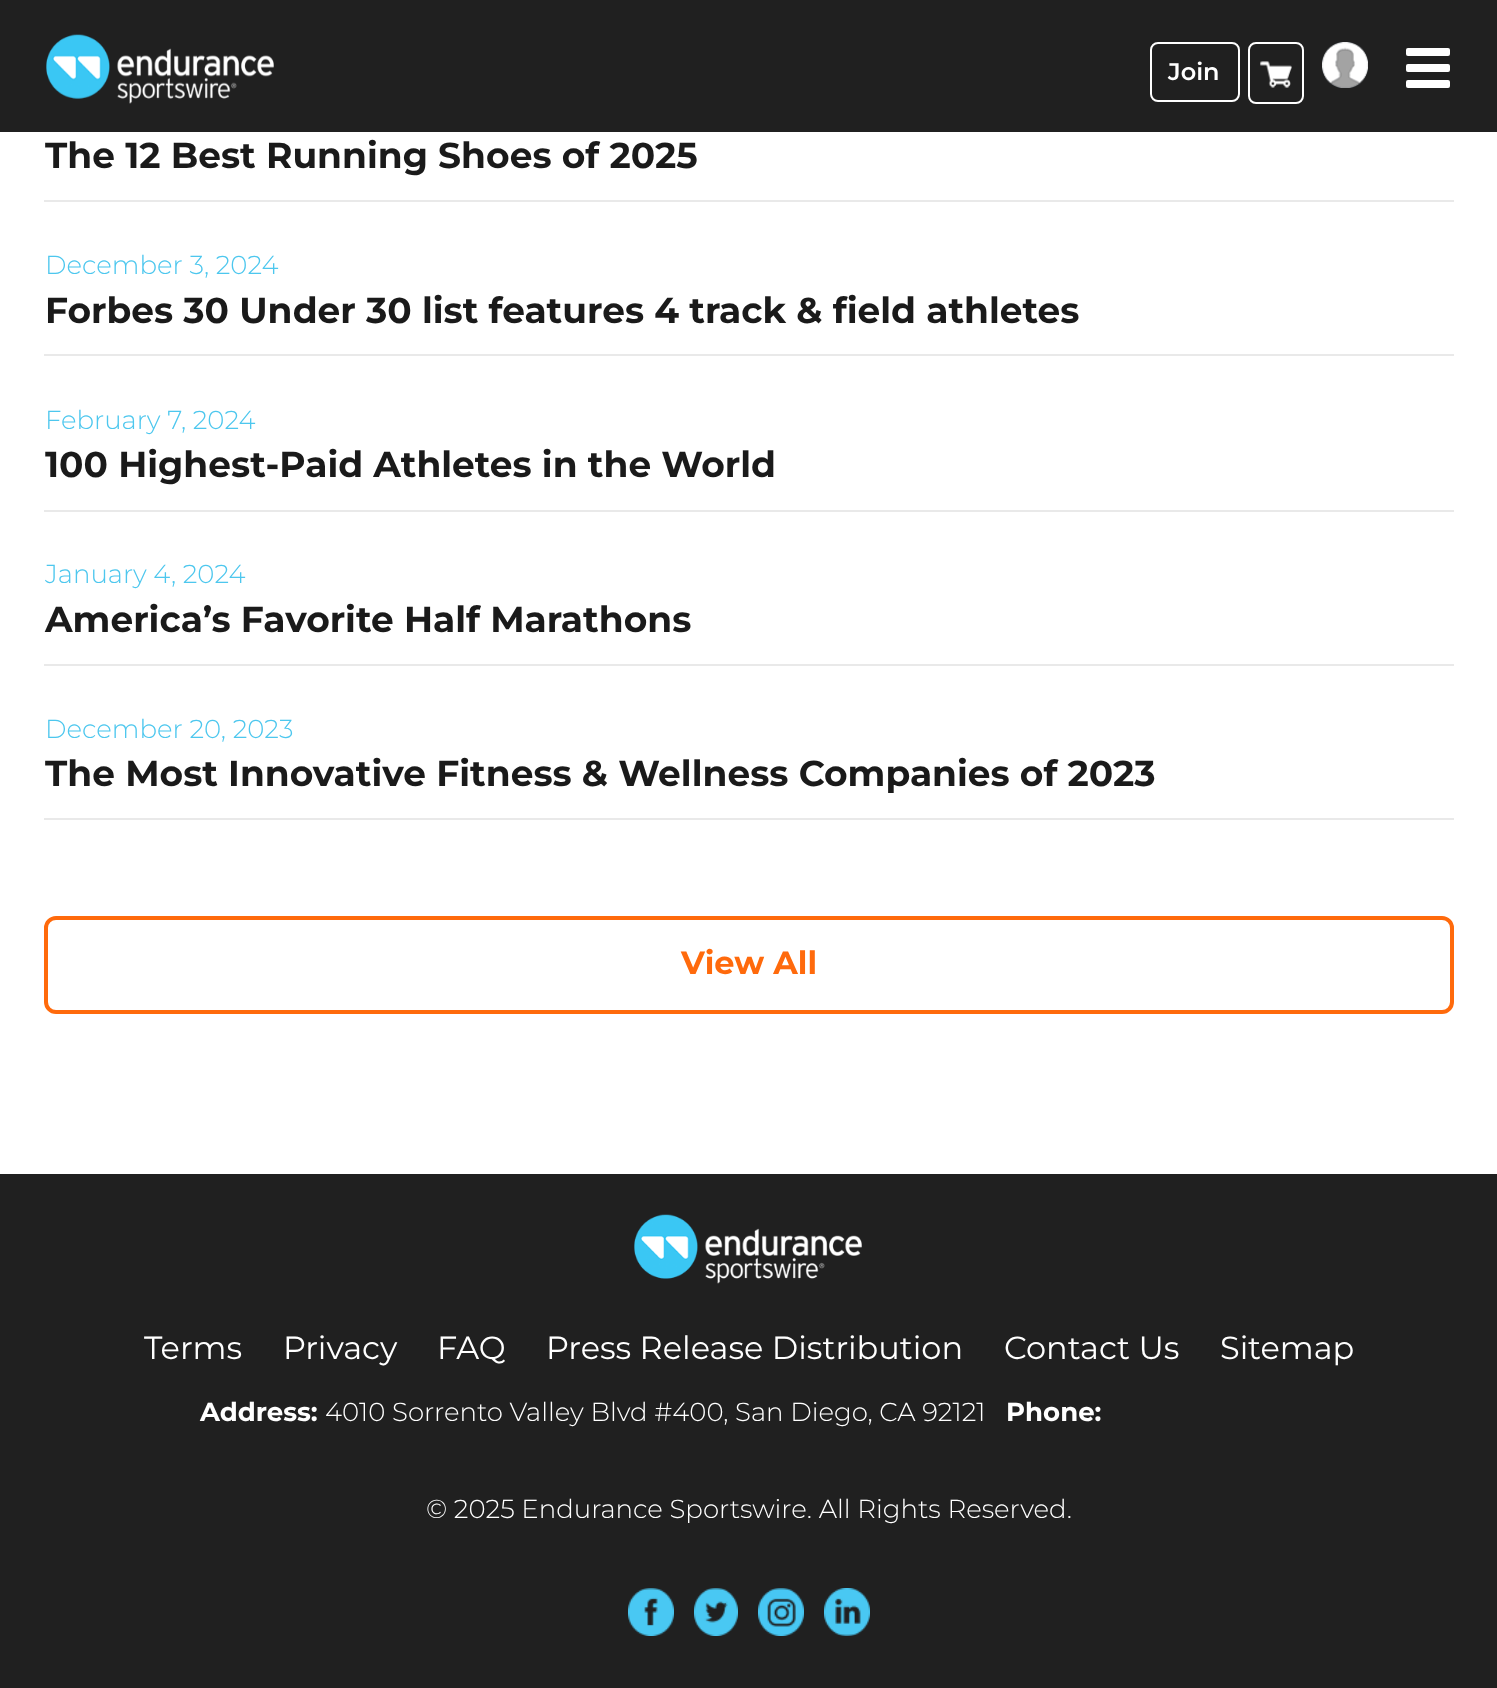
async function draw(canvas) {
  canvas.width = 1497
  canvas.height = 1688
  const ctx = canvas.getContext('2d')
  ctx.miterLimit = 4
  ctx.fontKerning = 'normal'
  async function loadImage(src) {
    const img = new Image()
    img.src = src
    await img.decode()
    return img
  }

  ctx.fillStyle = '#fff'
  ctx.fillRect(0, 0, 1497, 1688)
  ctx.fillStyle = '#202020'
  ctx.fillRect(0, 0, 1497, 132)
  ctx.drawImage(await loadImage('image0.png'), 46, 34, 228, 70)
  ctx.beginPath()
  ctx.roundRect(1151, 43, 88, 58, 7)
  ctx.strokeStyle = '#fff'
  ctx.lineWidth = 2
  ctx.stroke()
  ctx.font = '600 24px Montserrat'
  ctx.fillStyle = '#fff'
  ctx.fillText('Join', 1168, 80)
  ctx.beginPath()
  ctx.roundRect(1249, 43, 54, 60, 7)
  ctx.stroke()
  ctx.drawImage(await loadImage('image1.png'), 1260, 61, 32, 27)
  ctx.drawImage(await loadImage('image2.png'), 1322, 42, 46, 46)
  ctx.beginPath()
  ctx.roundRect(1406, 48, 44, 8, 2)
  ctx.fill()
  ctx.beginPath()
  ctx.roundRect(1406, 64, 44, 8, 2)
  ctx.fill()
  ctx.beginPath()
  ctx.roundRect(1406, 80, 44, 8, 2)
  ctx.fill()
  ctx.fillStyle = '#e9e9e9'
  ctx.fillRect(44, 200, 1410, 2)
  ctx.font = 'bold 36px Montserrat'
  ctx.fillStyle = '#1a1a1a'
  ctx.fillText('The 12 Best Running Shoes of 2025', 45, 168)
  ctx.fillStyle = '#e9e9e9'
  ctx.fillRect(44, 354, 1410, 2)
  ctx.font = '300 26px Montserrat'
  ctx.fillStyle = '#4dc7ee'
  ctx.fillText('December 3, 2024', 45, 274)
  ctx.font = 'bold 36px Montserrat'
  ctx.fillStyle = '#1a1a1a'
  ctx.fillText('Forbes 30 Under 30 list features 4 track & field athletes', 45, 323)
  ctx.fillStyle = '#e9e9e9'
  ctx.fillRect(44, 510, 1410, 2)
  ctx.font = '300 26px Montserrat'
  ctx.fillStyle = '#4dc7ee'
  ctx.fillText('February 7, 2024', 45, 429)
  ctx.font = 'bold 36px Montserrat'
  ctx.fillStyle = '#1a1a1a'
  ctx.fillText('100 Highest-Paid Athletes in the World', 45, 477)
  ctx.fillStyle = '#e9e9e9'
  ctx.fillRect(44, 664, 1410, 2)
  ctx.font = '300 26px Montserrat'
  ctx.fillStyle = '#4dc7ee'
  ctx.fillText('January 4, 2024', 45, 583)
  ctx.font = 'bold 36px Montserrat'
  ctx.fillStyle = '#1a1a1a'
  ctx.fillText('America’s Favorite Half Marathons', 45, 632)
  ctx.fillStyle = '#e9e9e9'
  ctx.fillRect(44, 818, 1410, 2)
  ctx.font = '300 26px Montserrat'
  ctx.fillStyle = '#4dc7ee'
  ctx.fillText('December 20, 2023', 45, 738)
  ctx.font = 'bold 36px Montserrat'
  ctx.fillStyle = '#1a1a1a'
  ctx.fillText('The Most Innovative Fitness & Wellness Companies of 2023', 45, 786)
  ctx.beginPath()
  ctx.roundRect(46, 918, 1406, 94, 10)
  ctx.strokeStyle = '#ff6a0c'
  ctx.lineWidth = 4
  ctx.stroke()
  ctx.font = 'bold 32px Montserrat'
  ctx.fillStyle = '#ff6a0c'
  ctx.fillText('View All', 681, 974)
  ctx.fillStyle = '#202020'
  ctx.fillRect(0, 1174, 1497, 514)
  ctx.drawImage(await loadImage('image3.png'), 634, 1214, 228, 70)
  ctx.font = '32px Montserrat'
  ctx.fillStyle = '#fff'
  ctx.fillText('Terms', 144, 1359)
  ctx.fillText('Privacy', 283, 1359)
  ctx.fillText('FAQ', 437, 1359)
  ctx.fillText('Press Release Distribution', 546, 1359)
  ctx.fillText('Contact Us', 1004, 1359)
  ctx.fillText('Sitemap', 1220, 1359)
  ctx.font = 'bold 26px Montserrat'
  ctx.fillText('Address:', 200, 1421)
  ctx.font = '300 26px Montserrat'
  ctx.fillText('4010 Sorrento Valley Blvd #400, San Diego, CA 92121', 325, 1421)
  ctx.font = 'bold 26px Montserrat'
  ctx.fillText('Phone:', 1006, 1421)
  ctx.font = '300 26px Montserrat'
  ctx.fillText('© 2025 Endurance Sportswire. All Rights Reserved.', 426, 1518)
  ctx.drawImage(await loadImage('image4.png'), 628, 1588, 46, 48)
  ctx.drawImage(await loadImage('image5.png'), 694, 1588, 44, 48)
  ctx.drawImage(await loadImage('image6.png'), 758, 1588, 46, 48)
  ctx.drawImage(await loadImage('image7.png'), 824, 1588, 46, 48)
}

draw(document.querySelector('canvas'))
